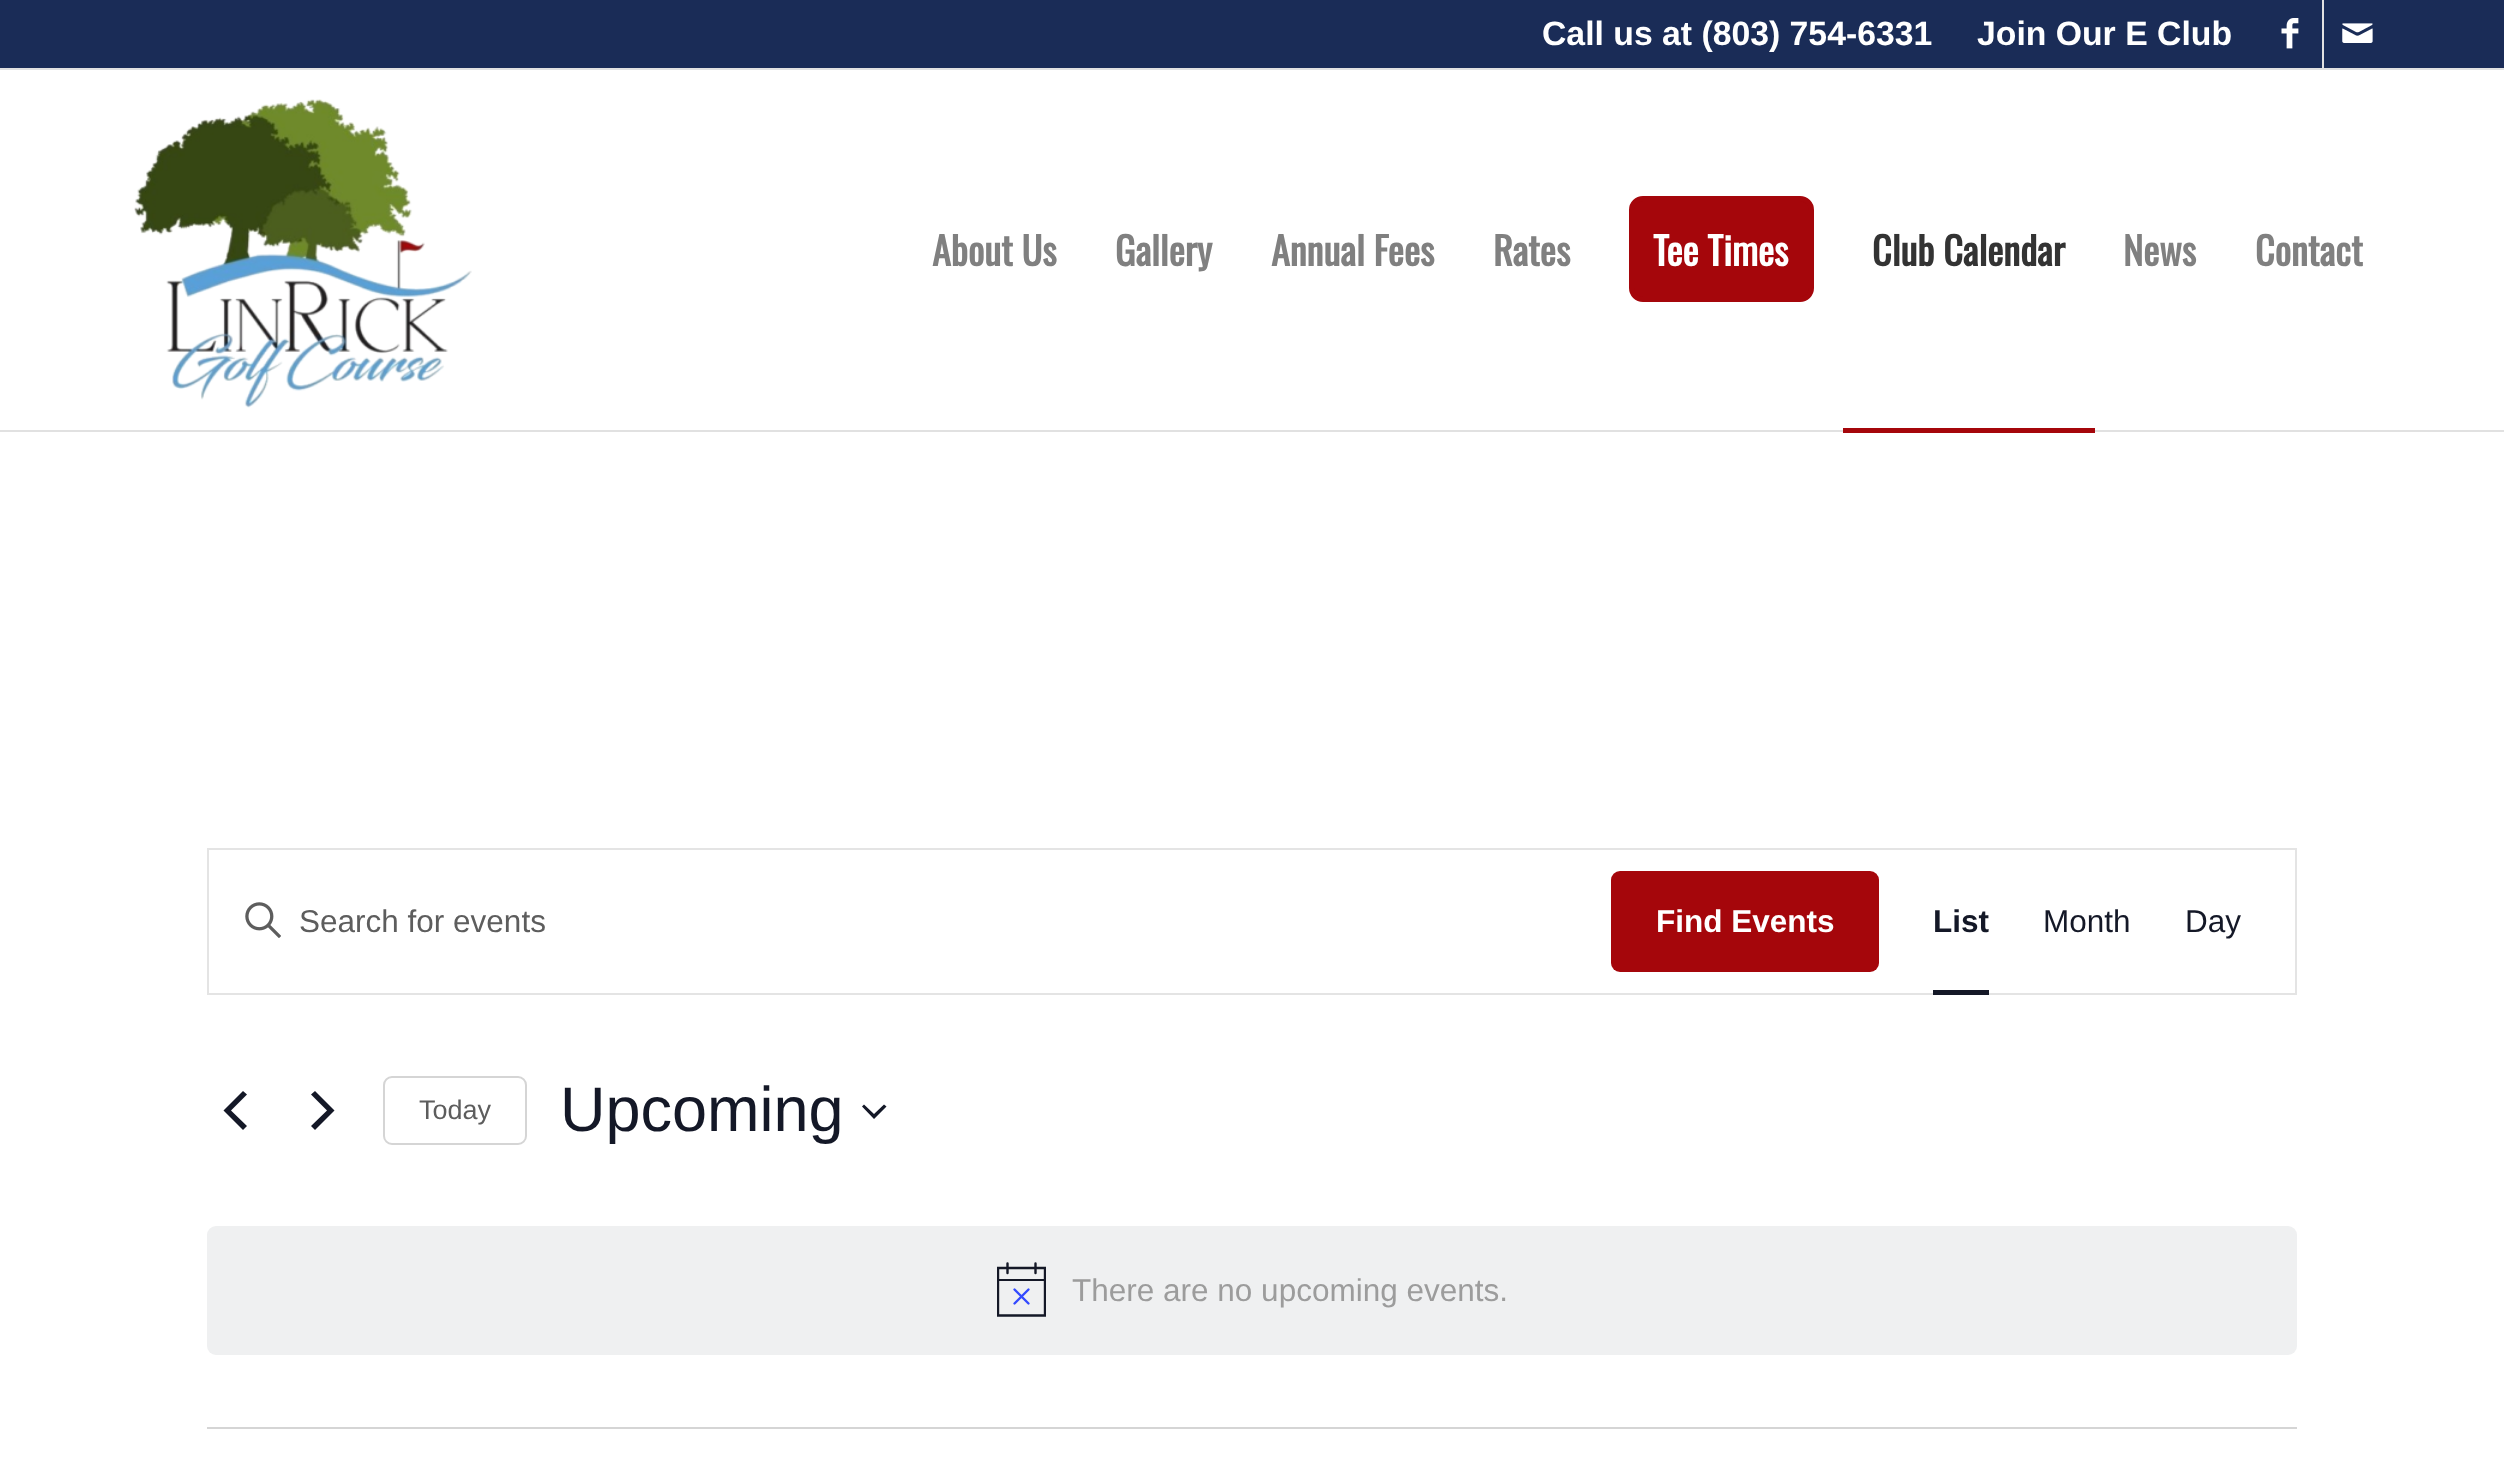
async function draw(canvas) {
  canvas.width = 2504
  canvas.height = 1459
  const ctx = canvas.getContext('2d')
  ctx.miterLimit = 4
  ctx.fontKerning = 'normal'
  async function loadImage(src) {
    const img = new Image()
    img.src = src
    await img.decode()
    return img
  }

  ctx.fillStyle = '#fff'
  ctx.fillRect(0, 0, 2504, 1459)
  ctx.fillStyle = '#1a2c57'
  ctx.fillRect(0, 0, 2504, 68)
  ctx.fillStyle = '#e1e1e1'
  ctx.fillRect(0, 68, 2504, 2)
  ctx.font = 'bold 33.75px Liberation Sans'
  ctx.fillStyle = '#fff'
  ctx.fillText('Call us at (803) 754-6331', 1542, 45)
  ctx.fillText('Join Our E Club', 1977, 45)
  ctx.fillStyle = '#e1e1e1'
  ctx.fillRect(2322, 0, 2, 68)
  ctx.drawImage(await loadImage('image0.png'), 2281, 18, 18, 31)
  ctx.drawImage(await loadImage('image1.png'), 2342, 23, 31, 20)
  ctx.fillRect(0, 430, 2504, 2)
  ctx.drawImage(await loadImage('image2.png'), 134, 99, 338, 309)
  ctx.font = 'bold 38.25px Oswald'
  ctx.fillStyle = '#808080'
  ctx.fillText('About Us', 932, 266)
  ctx.fillText('Gallery', 1115, 266)
  ctx.fillText('Annual Fees', 1271, 266)
  ctx.fillText('Rates', 1493, 266)
  ctx.fillStyle = '#a5060b'
  ctx.beginPath()
  ctx.roundRect(1631.5, 198.5, 180, 101, 11.5)
  ctx.fill()
  ctx.strokeStyle = '#a5060b'
  ctx.lineWidth = 5
  ctx.stroke()
  ctx.fillStyle = '#fff'
  ctx.fillText('Tee Times', 1653, 266)
  ctx.fillStyle = '#333'
  ctx.fillText('Club Calendar', 1872, 266)
  ctx.fillStyle = '#a5060b'
  ctx.fillRect(1843, 428, 252, 5)
  ctx.fillStyle = '#808080'
  ctx.fillText('News', 2123, 266)
  ctx.fillText('Contact', 2255, 266)
  ctx.strokeStyle = '#e4e4e4'
  ctx.lineWidth = 2
  ctx.strokeRect(208, 849, 2088, 145)
  ctx.drawImage(await loadImage('image3.png'), 245, 902, 36, 36)
  ctx.font = '31.5px Liberation Sans'
  ctx.fillStyle = '#5d5d5d'
  ctx.fillText('Search for events', 299, 932)
  ctx.fillStyle = '#a5060b'
  ctx.beginPath()
  ctx.roundRect(1611, 871, 268, 101, 9)
  ctx.fill()
  ctx.font = 'bold 31.5px Liberation Sans'
  ctx.fillStyle = '#fff'
  ctx.fillText('Find Events', 1656, 932)
  ctx.fillStyle = '#141827'
  ctx.fillText('List', 1933, 932)
  ctx.fillRect(1933, 990, 56, 5)
  ctx.font = '31.5px Liberation Sans'
  ctx.fillText('Month', 2043, 932)
  ctx.fillText('Day', 2185, 932)
  ctx.beginPath()
  ctx.moveTo(247, 1126)
  ctx.lineTo(243, 1130)
  ctx.lineTo(223.5, 1110.5)
  ctx.lineTo(243, 1091)
  ctx.lineTo(247, 1094.5)
  ctx.lineTo(231, 1110.5)
  ctx.closePath()
  ctx.fill()
  ctx.beginPath()
  ctx.moveTo(311, 1094.5)
  ctx.lineTo(315, 1091)
  ctx.lineTo(334.5, 1110.5)
  ctx.lineTo(315, 1130)
  ctx.lineTo(311, 1126)
  ctx.lineTo(327, 1110.5)
  ctx.closePath()
  ctx.fill()
  ctx.beginPath()
  ctx.roundRect(384, 1077, 142, 67, 8)
  ctx.strokeStyle = '#d5d5d5'
  ctx.stroke()
  ctx.font = '27px Liberation Sans'
  ctx.fillStyle = '#5d5d5d'
  ctx.fillText('Today', 419, 1119)
  ctx.font = '63px Liberation Sans'
  ctx.fillStyle = '#141827'
  ctx.fillText('Upcoming', 560, 1131)
  ctx.beginPath()
  ctx.moveTo(864, 1104.5)
  ctx.lineTo(874, 1114)
  ctx.lineTo(884, 1104.5)
  ctx.lineTo(886.5, 1106.5)
  ctx.lineTo(874, 1119)
  ctx.lineTo(862, 1106.5)
  ctx.closePath()
  ctx.fill('evenodd')
  ctx.fillStyle = '#eff0f1'
  ctx.beginPath()
  ctx.roundRect(207, 1226, 2090, 129, 9)
  ctx.fill()
  ctx.save()
  ctx.beginPath()
  ctx.rect(997, 1262, 49, 57)
  ctx.clip()
  ctx.beginPath()
  ctx.moveTo(998, 1268)
  ctx.lineTo(1045, 1268)
  ctx.lineTo(1045, 1315.5)
  ctx.lineTo(998, 1315.5)
  ctx.closePath()
  ctx.strokeStyle = '#141827'
  ctx.lineWidth = 2.4
  ctx.stroke()
  ctx.restore()
  ctx.beginPath()
  ctx.moveTo(1014.5, 1289.5)
  ctx.lineTo(1028.5, 1303.5)
  ctx.moveTo(1028.5, 1289.5)
  ctx.lineTo(1014.5, 1303.5)
  ctx.strokeStyle = '#334aff'
  ctx.lineWidth = 2.4
  ctx.lineCap = 'round'
  ctx.stroke()
  ctx.beginPath()
  ctx.moveTo(1007.5, 1263.5)
  ctx.lineTo(1007.5, 1273)
  ctx.moveTo(1035.5, 1263.5)
  ctx.lineTo(1035.5, 1273)
  ctx.strokeStyle = '#141827'
  ctx.stroke()
  ctx.fillStyle = '#141827'
  ctx.fillRect(997, 1279, 49, 2)
  ctx.font = '31.5px Liberation Sans'
  ctx.fillStyle = '#9c9c9c'
  ctx.fillText('There are no upcoming events.', 1072, 1301)
  ctx.fillStyle = '#d5d5d5'
  ctx.fillRect(207, 1427, 2090, 2)
}

draw(document.querySelector('canvas'))
